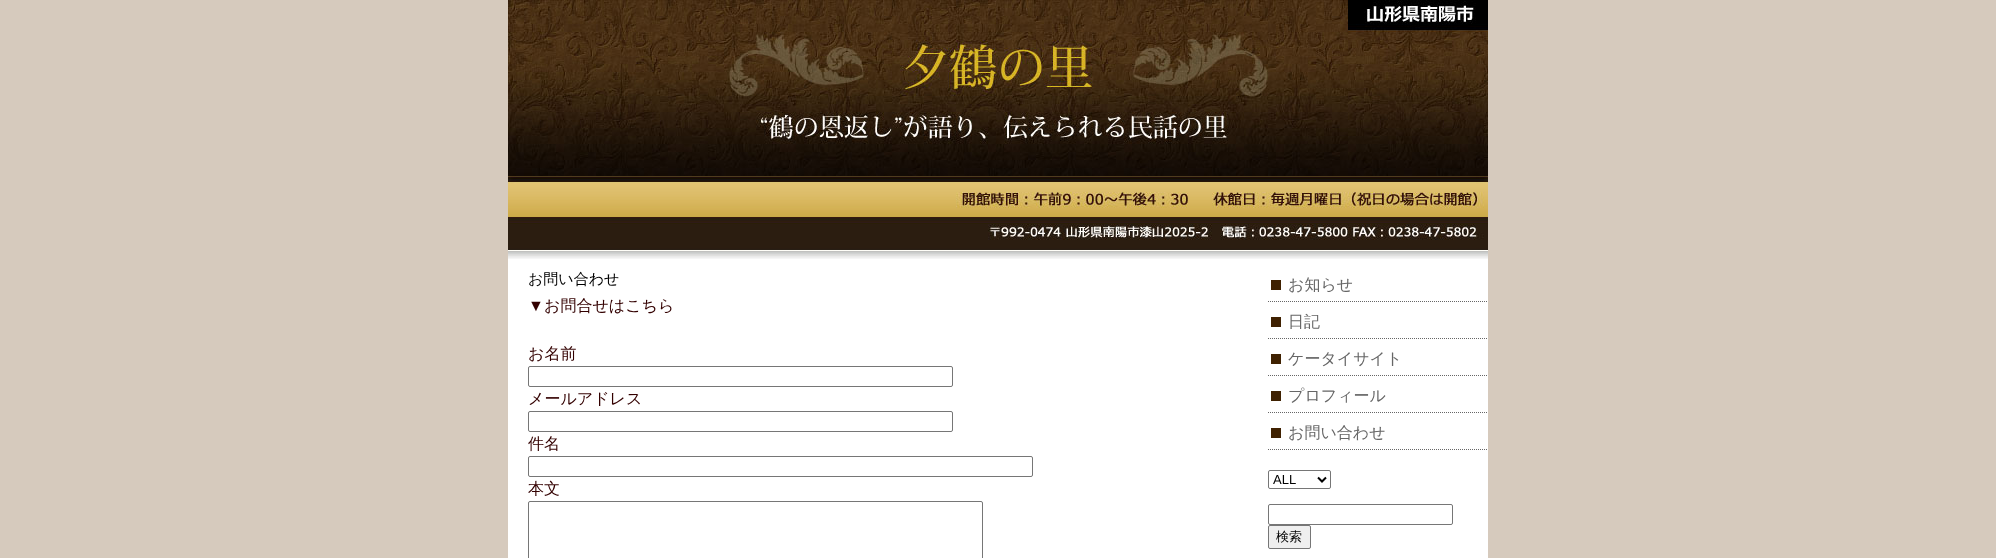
async function draw(canvas) {
  canvas.width = 1996
  canvas.height = 558
  const ctx = canvas.getContext('2d')
  ctx.miterLimit = 4
  ctx.fontKerning = 'normal'
  async function loadImage(src) {
    const img = new Image()
    img.src = src
    await img.decode()
    return img
  }

  ctx.fillStyle = '#d6cabd'
  ctx.fillRect(0, 0, 1996, 558)
  ctx.fillStyle = '#fff'
  ctx.fillRect(508, 259, 980, 299)
  ctx.drawImage(await loadImage('image0.png'), 508, 0, 980, 259)
  ctx.font = '500 15px WenQuanYi Zen Hei'
  ctx.fillStyle = '#000'
  ctx.fillText('お問い合わせ', 528, 284)
  ctx.font = '16px Liberation Serif'
  ctx.fillStyle = '#300'
  ctx.fillText('▼', 528, 311)
  ctx.font = '500 16px WenQuanYi Zen Hei'
  ctx.fillText('お問合せはこちら', 544, 311)
  ctx.fillText('お名前', 528, 359)
  ctx.beginPath()
  ctx.roundRect(528.5, 366.5, 424, 20, 1.5)
  ctx.strokeStyle = '#767676'
  ctx.stroke()
  ctx.fillText('メールアドレス', 528, 404)
  ctx.beginPath()
  ctx.roundRect(528.5, 411.5, 424, 20, 1.5)
  ctx.stroke()
  ctx.fillText('件名', 528, 449)
  ctx.beginPath()
  ctx.roundRect(528.5, 456.5, 504, 20, 1.5)
  ctx.stroke()
  ctx.fillText('本文', 528, 494)
  ctx.beginPath()
  ctx.roundRect(528.5, 501.5, 454, 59, 1.5)
  ctx.stroke()
  ctx.fillStyle = '#3f2101'
  ctx.fillRect(1271, 280, 10, 10)
  ctx.beginPath()
  ctx.moveTo(1268, 301.5)
  ctx.lineTo(1488, 301.5)
  ctx.strokeStyle = '#666'
  ctx.setLineDash([1, 1])
  ctx.stroke()
  ctx.fillStyle = '#666'
  ctx.fillText('お知らせ', 1288, 290)
  ctx.fillStyle = '#3f2101'
  ctx.fillRect(1271, 317, 10, 10)
  ctx.beginPath()
  ctx.moveTo(1268, 338.5)
  ctx.lineTo(1488, 338.5)
  ctx.stroke()
  ctx.fillStyle = '#666'
  ctx.fillText('日記', 1288, 327)
  ctx.fillStyle = '#3f2101'
  ctx.fillRect(1271, 354, 10, 10)
  ctx.beginPath()
  ctx.moveTo(1268, 375.5)
  ctx.lineTo(1488, 375.5)
  ctx.stroke()
  ctx.fillStyle = '#666'
  ctx.fillText('ケータイサイト', 1288, 364)
  ctx.fillStyle = '#3f2101'
  ctx.fillRect(1271, 391, 10, 10)
  ctx.beginPath()
  ctx.moveTo(1268, 412.5)
  ctx.lineTo(1488, 412.5)
  ctx.stroke()
  ctx.fillStyle = '#666'
  ctx.fillText('プロフィール', 1288, 401)
  ctx.fillStyle = '#3f2101'
  ctx.fillRect(1271, 428, 10, 10)
  ctx.beginPath()
  ctx.moveTo(1268, 449.5)
  ctx.lineTo(1488, 449.5)
  ctx.stroke()
  ctx.fillStyle = '#666'
  ctx.fillText('お問い合わせ', 1288, 438)
  ctx.beginPath()
  ctx.roundRect(1268.5, 470.5, 62, 18, 1.5)
  ctx.strokeStyle = '#767676'
  ctx.setLineDash([])
  ctx.stroke()
  ctx.beginPath()
  ctx.moveTo(1318, 477.5)
  ctx.lineTo(1322, 481.5)
  ctx.lineTo(1326, 477.5)
  ctx.strokeStyle = '#000'
  ctx.lineWidth = 2
  ctx.stroke()
  ctx.font = '13px Liberation Sans'
  ctx.fillStyle = '#000'
  ctx.fillText('ALL', 1273, 484)
  ctx.beginPath()
  ctx.roundRect(1268.5, 504.5, 184, 20, 1.5)
  ctx.strokeStyle = '#767676'
  ctx.lineWidth = 1
  ctx.stroke()
  ctx.fillStyle = '#efefef'
  ctx.beginPath()
  ctx.roundRect(1268.5, 525.5, 42, 23, 1.5)
  ctx.fill()
  ctx.stroke()
  ctx.font = '500 13px WenQuanYi Zen Hei'
  ctx.fillStyle = '#000'
  ctx.fillText('検索', 1276, 541)
}

draw(document.querySelector('canvas'))
